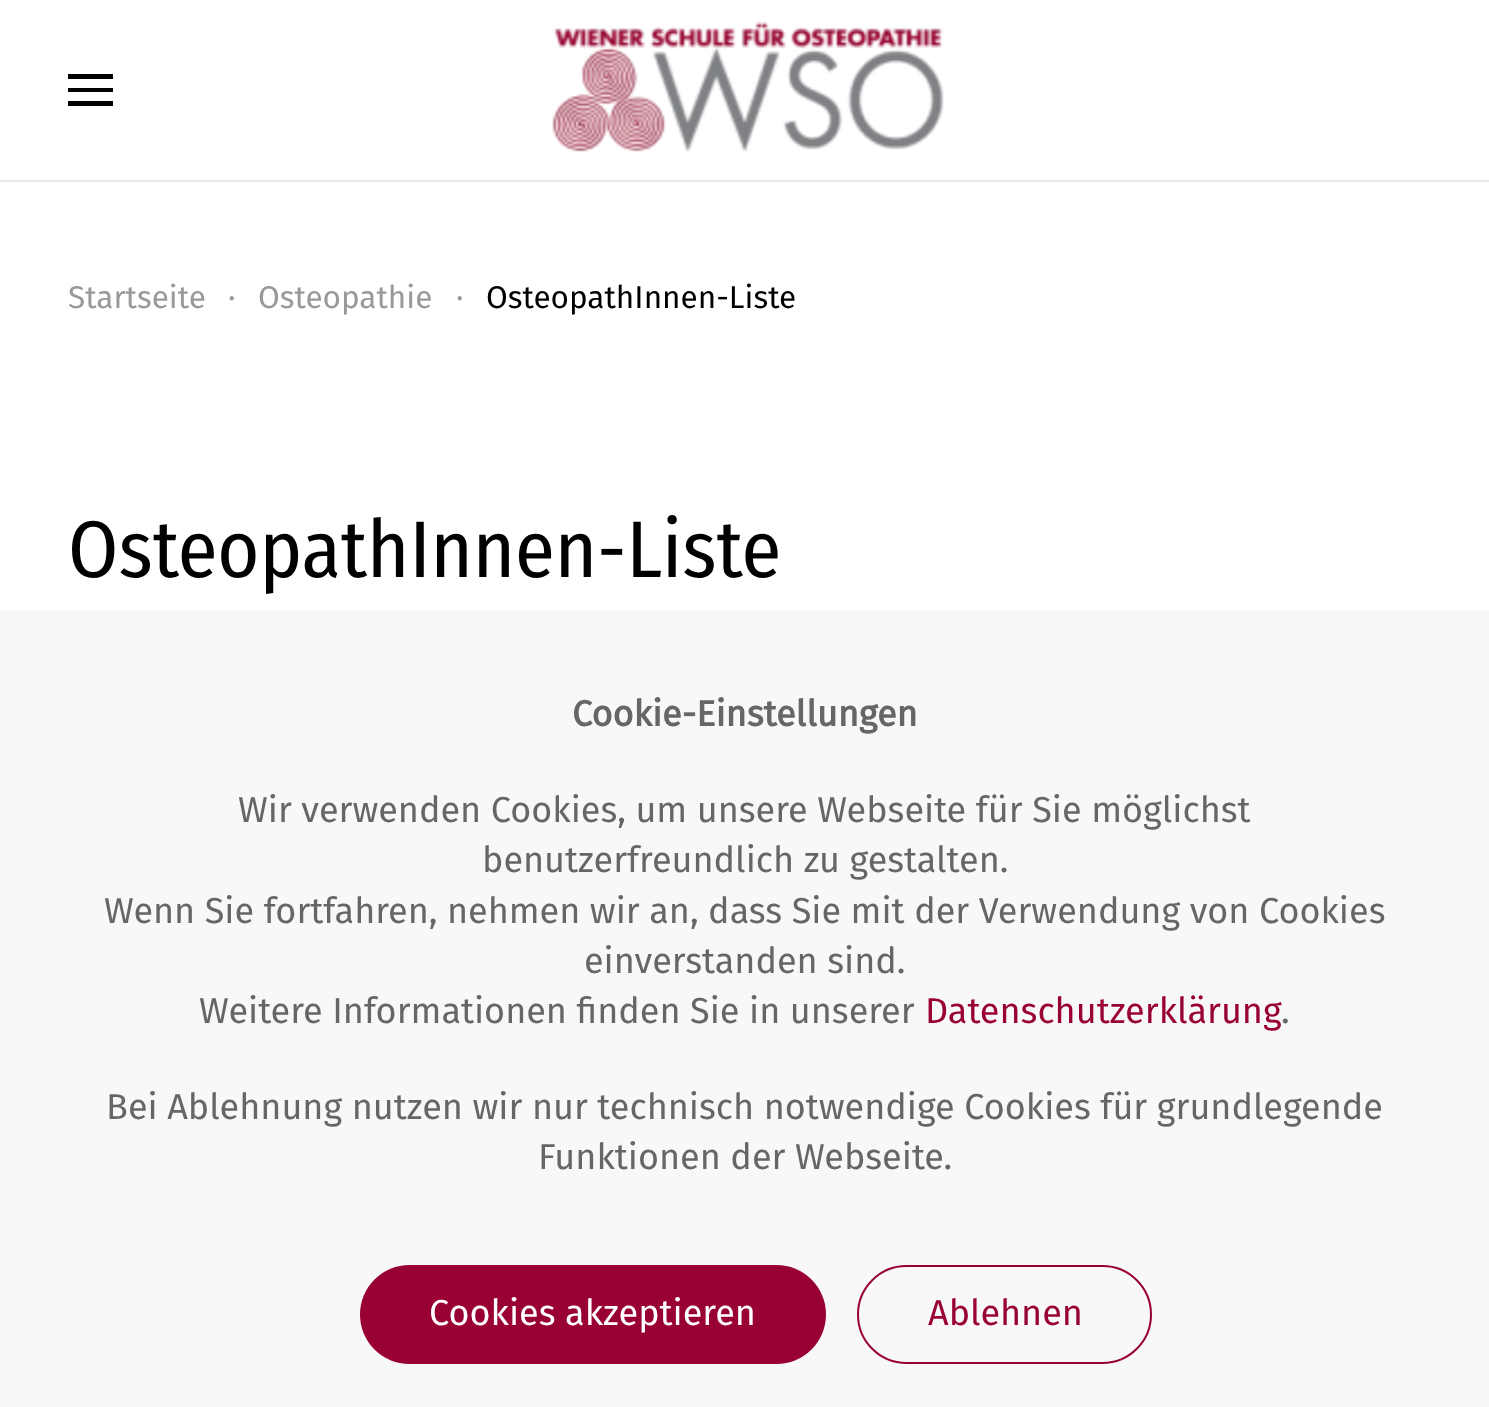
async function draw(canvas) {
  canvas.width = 1489
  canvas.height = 1407
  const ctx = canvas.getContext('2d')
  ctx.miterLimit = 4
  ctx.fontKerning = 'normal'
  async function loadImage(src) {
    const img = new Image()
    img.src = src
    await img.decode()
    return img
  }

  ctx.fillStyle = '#fff'
  ctx.fillRect(0, 0, 1489, 1407)
  ctx.fillStyle = '#e8e8e8'
  ctx.fillRect(0, 180, 1489, 2)
  ctx.fillStyle = '#000'
  ctx.fillRect(68, 74, 45, 5)
  ctx.fillRect(68, 88, 45, 4)
  ctx.fillRect(68, 101, 45, 5)
  ctx.drawImage(await loadImage('image0.png'), 551, 21, 393, 132)
  ctx.font = '31.5px Fira Sans'
  ctx.fillStyle = '#999'
  ctx.fillText('Startseite', 68, 308)
  ctx.fillText('·', 228, 308)
  ctx.fillText('Osteopathie', 258, 308)
  ctx.fillText('·', 456, 308)
  ctx.fillStyle = '#000'
  ctx.fillText('OsteopathInnen-Liste', 486, 308)
  ctx.font = '80.25px Fira Sans Condensed'
  ctx.fillText('OsteopathInnen-Liste', 68, 577)
  ctx.fillStyle = '#f8f8f8'
  ctx.fillRect(0, 610, 1489, 797)
  ctx.font = 'bold 36px Fira Sans'
  ctx.fillStyle = '#666'
  ctx.fillText('Cookie-Einstellungen', 572, 726)
  ctx.font = '36px Fira Sans'
  ctx.fillText('Wir verwenden Cookies, um unsere Webseite für Sie möglichst', 238, 822)
  ctx.fillText('benutzerfreundlich zu gestalten.', 482, 872)
  ctx.fillText('Wenn Sie fortfahren, nehmen wir an, dass Sie mit der Verwendung von Cookies', 104, 923)
  ctx.fillText('einverstanden sind.', 584, 973)
  ctx.fillText('Weitere Informationen finden Sie in unserer', 199, 1023)
  ctx.fillStyle = '#903'
  ctx.fillText('Datenschutzerklärung', 925, 1023)
  ctx.fillStyle = '#666'
  ctx.fillText('.', 1281, 1023)
  ctx.fillText('Bei Ablehnung nutzen wir nur technisch notwendige Cookies für grundlegende', 106, 1119)
  ctx.fillText('Funktionen der Webseite.', 538, 1169)
  ctx.fillStyle = '#903'
  ctx.beginPath()
  ctx.roundRect(360, 1265, 466, 99, 49.5)
  ctx.fill()
  ctx.fillStyle = '#fff'
  ctx.fillText('Cookies akzeptieren', 429, 1325)
  ctx.beginPath()
  ctx.roundRect(858, 1266, 293, 97, 48.5)
  ctx.strokeStyle = '#903'
  ctx.lineWidth = 2
  ctx.stroke()
  ctx.fillStyle = '#903'
  ctx.fillText('Ablehnen', 928, 1325)
}

draw(document.querySelector('canvas'))
